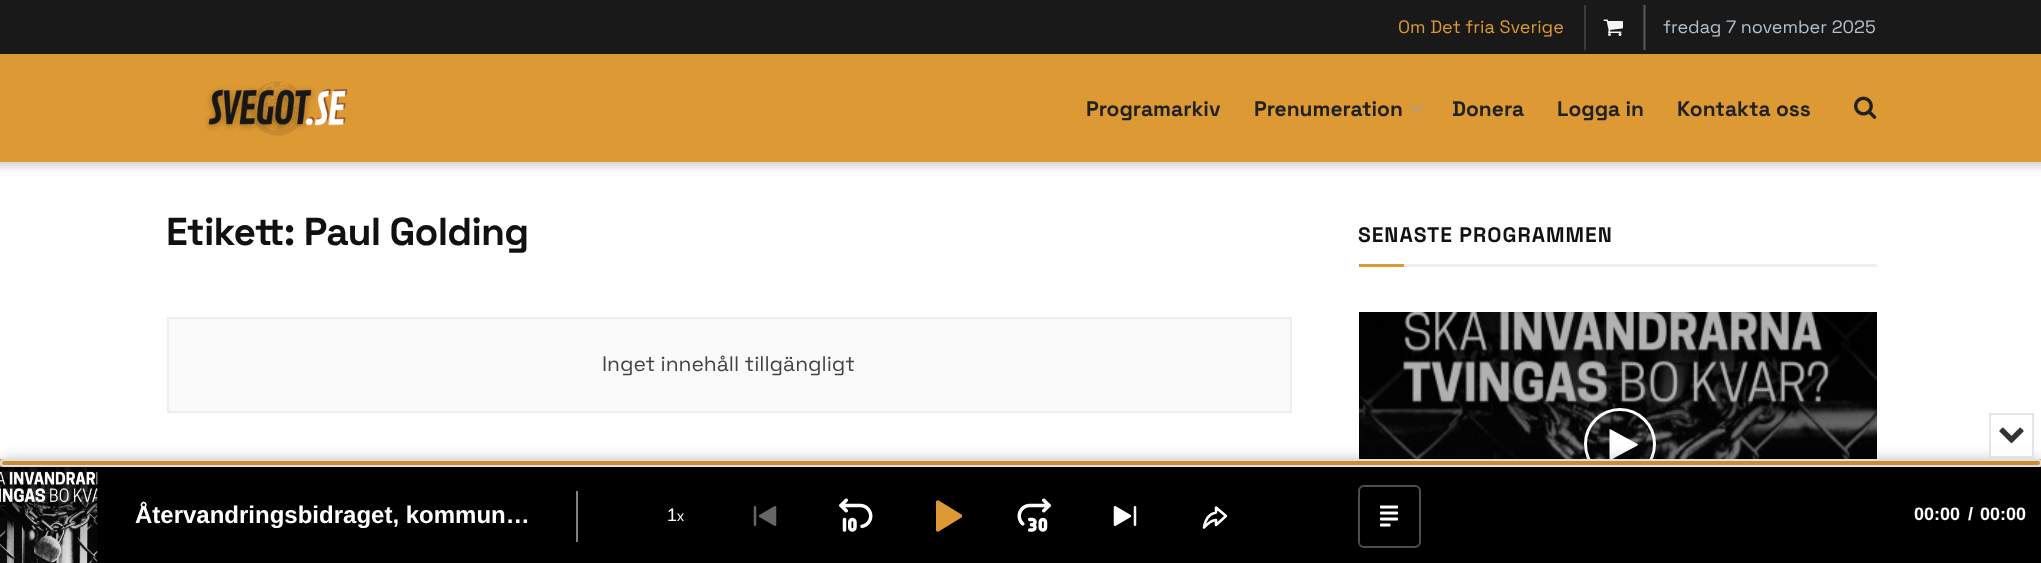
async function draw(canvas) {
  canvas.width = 2041
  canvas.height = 563
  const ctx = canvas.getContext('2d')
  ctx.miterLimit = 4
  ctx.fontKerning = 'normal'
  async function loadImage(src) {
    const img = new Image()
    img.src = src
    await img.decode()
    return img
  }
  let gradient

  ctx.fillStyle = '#fff'
  ctx.fillRect(0, 0, 2041, 563)
  ctx.fillStyle = '#191919'
  ctx.fillRect(0, 0, 2041, 54)
  ctx.fillStyle = '#3c3c3c'
  ctx.fillRect(1645, 5, 1, 45)
  ctx.font = '18px Space Grotesk'
  ctx.fillStyle = '#d93'
  ctx.fillText('Om Det fria Sverige', 1398, 33)
  ctx.fillStyle = '#3c3c3c'
  ctx.fillRect(1584, 5, 2, 45)
  ctx.drawImage(await loadImage('image0.png'), 1603, 19, 20, 17)
  ctx.fillRect(1643, 5, 1, 45)
  ctx.fillStyle = '#595959'
  ctx.fillRect(1644, 5, 1, 45)
  ctx.fillStyle = '#b2c0cd'
  ctx.fillText('fredag 7 november 2025', 1663, 33)
  ctx.fillStyle = '#d93'
  ctx.fillRect(0, 54, 2041, 108)
  ctx.drawImage(await loadImage('image1.png'), 205, 81, 143, 55)
  ctx.font = 'bold 21px Space Grotesk'
  ctx.fillStyle = '#212121'
  ctx.fillText('Programarkiv', 1086, 116)
  ctx.fillText('Prenumeration', 1254, 116)
  ctx.drawImage(await loadImage('image2.png'), 1411, 105, 12, 7)
  ctx.fillText('Donera', 1452, 116)
  ctx.fillText('Logga in', 1557, 116)
  ctx.fillText('Kontakta oss', 1677, 116)
  ctx.drawImage(await loadImage('image3.png'), 1854, 96, 23, 23)
  gradient = ctx.createLinearGradient(1021, 162, 1021, 173)
  gradient.addColorStop(0, '#d9d9d9')
  gradient.addColorStop(1, '#fff')
  ctx.fillStyle = gradient
  ctx.fillRect(0, 162, 2041, 10)
  ctx.letterSpacing = '-0.75px'
  ctx.font = 'bold 39px Space Grotesk'
  ctx.fillStyle = '#111'
  ctx.fillText('Etikett: Paul Golding', 166, 245)
  ctx.fillStyle = '#fafafa'
  ctx.beginPath()
  ctx.rect(168, 318, 1123, 94)
  ctx.fill()
  ctx.strokeStyle = '#eee'
  ctx.lineWidth = 2
  ctx.stroke()
  ctx.letterSpacing = '0px'
  ctx.font = '21px Space Grotesk'
  ctx.fillStyle = '#444'
  ctx.fillText('Inget innehåll tillgängligt', 602, 371)
  ctx.fillStyle = '#eee'
  ctx.fillRect(1404, 264, 473, 3)
  ctx.letterSpacing = '1px'
  ctx.font = 'bold 21px Space Grotesk'
  ctx.fillStyle = '#111'
  ctx.fillText('SENASTE PROGRAMMEN', 1358, 242)
  ctx.fillStyle = '#d93'
  ctx.fillRect(1359, 264, 45, 3)
  ctx.drawImage(await loadImage('image4.png'), 1359, 312, 518, 147)
  ctx.beginPath()
  ctx.arc(1620, 444, 34.5, 0, 2 * Math.PI)
  ctx.strokeStyle = '#fff'
  ctx.lineWidth = 3
  ctx.stroke()
  ctx.fillStyle = '#fff'
  ctx.beginPath()
  ctx.moveTo(1637.5, 445.5)
  ctx.lineTo(1615, 457.5)
  ctx.bezierCurveTo(1614.5, 458, 1610.5, 461, 1609.5, 460)
  ctx.lineTo(1609.5, 429.5)
  ctx.lineTo(1610, 429)
  ctx.lineTo(1637.5, 444)
  ctx.lineTo(1638, 444.5)
  ctx.closePath()
  ctx.fill()
  ctx.fillStyle = '#00000059'
  ctx.filter = 'blur(7.5px)'
  ctx.beginPath()
  ctx.rect(0, 462, 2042, 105)
  ctx.fill()
  ctx.filter = 'none'
  ctx.fillStyle = '#ffffffd9'
  ctx.fillRect(1989, 448, 45, 10)
  ctx.strokeStyle = '#0000001a'
  ctx.lineWidth = 2
  ctx.strokeRect(1990, 414, 43, 43)
  ctx.drawImage(await loadImage('image5.png'), 1999, 427, 25, 17)
  ctx.fillStyle = '#000'
  ctx.fillRect(97, 467, 1944, 96)
  ctx.fillStyle = '#d93'
  ctx.fillRect(0, 459, 2041, 8)
  ctx.drawImage(await loadImage('image6.png'), 0, 466, 98, 97)
  ctx.fillStyle = '#00000014'
  ctx.beginPath()
  ctx.roundRect(1, 460, 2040, 6, 3)
  ctx.fill()
  ctx.strokeStyle = '#e0e0e0'
  ctx.stroke()
  ctx.fillStyle = '#808080'
  ctx.fillRect(576, 491, 2, 51)
  ctx.letterSpacing = '0px'
  ctx.font = 'bold 24px Liberation Sans'
  ctx.fillStyle = '#fff'
  ctx.fillText('Återvandringsbidraget, kommun…', 135, 523)
  ctx.font = '18px Liberation Sans'
  ctx.fillText('1', 667, 521)
  ctx.font = '14px Liberation Sans'
  ctx.fillText('x', 677, 521)
  ctx.drawImage(await loadImage('image7.png'), 753, 506, 24, 20)
  ctx.drawImage(await loadImage('image8.png'), 839, 498, 34, 34)
  ctx.drawImage(await loadImage('image9.png'), 936, 500, 27, 32)
  ctx.drawImage(await loadImage('image10.png'), 1017, 498, 34, 34)
  ctx.drawImage(await loadImage('image11.png'), 1113, 506, 24, 20)
  ctx.beginPath()
  ctx.moveTo(1216, 507.5)
  ctx.lineTo(1216, 512.5)
  ctx.bezierCurveTo(1208, 514, 1205, 521, 1204, 527.5)
  ctx.bezierCurveTo(1203.5, 528, 1210.5, 520, 1216, 520)
  ctx.lineTo(1216, 525)
  ctx.lineTo(1226, 516)
  ctx.closePath()
  ctx.strokeStyle = '#fff'
  ctx.lineWidth = 2.5
  ctx.lineCap = 'round'
  ctx.lineJoin = 'round'
  ctx.stroke()
  ctx.beginPath()
  ctx.roundRect(1359, 486, 61, 61, 5)
  ctx.strokeStyle = '#4d4d4d'
  ctx.lineWidth = 2
  ctx.lineJoin = 'miter'
  ctx.stroke()
  ctx.drawImage(await loadImage('image12.png'), 1380, 505, 18, 22)
  ctx.font = 'bold 18px Liberation Sans'
  ctx.fillText('00:00', 1914, 520)
  ctx.fillText('/', 1968, 520)
  ctx.fillText('00:00', 1980, 520)
}

draw(document.querySelector('canvas'))
